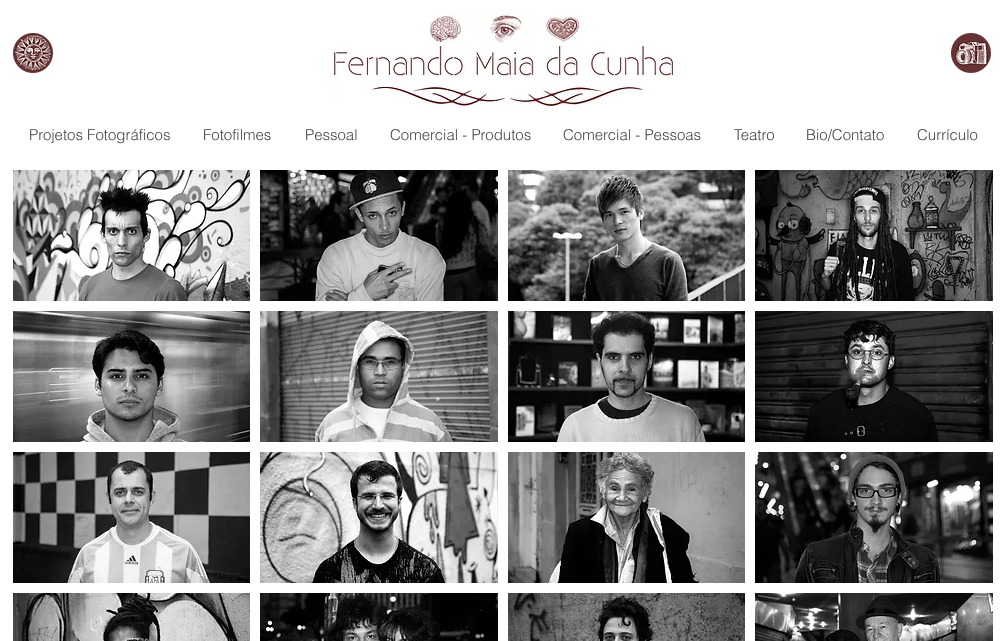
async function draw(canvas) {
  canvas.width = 1005
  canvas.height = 641
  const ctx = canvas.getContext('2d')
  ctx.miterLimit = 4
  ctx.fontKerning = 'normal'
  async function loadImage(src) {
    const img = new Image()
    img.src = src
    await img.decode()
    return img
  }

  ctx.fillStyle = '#fff'
  ctx.fillRect(0, 0, 1005, 641)
  ctx.drawImage(await loadImage('image0.png'), 13, 33, 40, 40)
  ctx.drawImage(await loadImage('image1.png'), 333, 13, 344, 96)
  ctx.drawImage(await loadImage('image2.png'), 951, 33, 40, 40)
  ctx.font = '300 15px helvetica'
  ctx.fillStyle = '#444'
  ctx.fillText('Projetos Fotográficos', 29, 140)
  ctx.fillText('Fotofilmes', 203, 140)
  ctx.fillText('Pessoal', 305, 140)
  ctx.fillText('Comercial - Produtos', 390, 140)
  ctx.fillText('Comercial - Pessoas', 563, 140)
  ctx.fillText('Teatro', 734, 140)
  ctx.fillText('Bio/Contato', 806, 140)
  ctx.fillText('Currículo', 917, 140)
  ctx.drawImage(await loadImage('image3.png'), 13, 170, 237, 131)
  ctx.drawImage(await loadImage('image4.png'), 260, 170, 238, 131)
  ctx.drawImage(await loadImage('image5.png'), 508, 170, 237, 131)
  ctx.drawImage(await loadImage('image6.png'), 755, 170, 238, 131)
  ctx.drawImage(await loadImage('image7.png'), 13, 311, 237, 131)
  ctx.drawImage(await loadImage('image8.png'), 260, 311, 238, 131)
  ctx.drawImage(await loadImage('image9.png'), 508, 311, 237, 131)
  ctx.drawImage(await loadImage('image10.png'), 755, 311, 238, 131)
  ctx.drawImage(await loadImage('image11.png'), 13, 452, 237, 131)
  ctx.drawImage(await loadImage('image12.png'), 260, 452, 238, 131)
  ctx.drawImage(await loadImage('image13.png'), 508, 452, 237, 131)
  ctx.drawImage(await loadImage('image14.png'), 755, 452, 238, 131)
  ctx.drawImage(await loadImage('image15.png'), 13, 593, 237, 48)
  ctx.drawImage(await loadImage('image16.png'), 260, 593, 238, 48)
  ctx.drawImage(await loadImage('image17.png'), 508, 593, 237, 48)
  ctx.drawImage(await loadImage('image18.png'), 755, 593, 238, 48)
}

draw(document.querySelector('canvas'))
